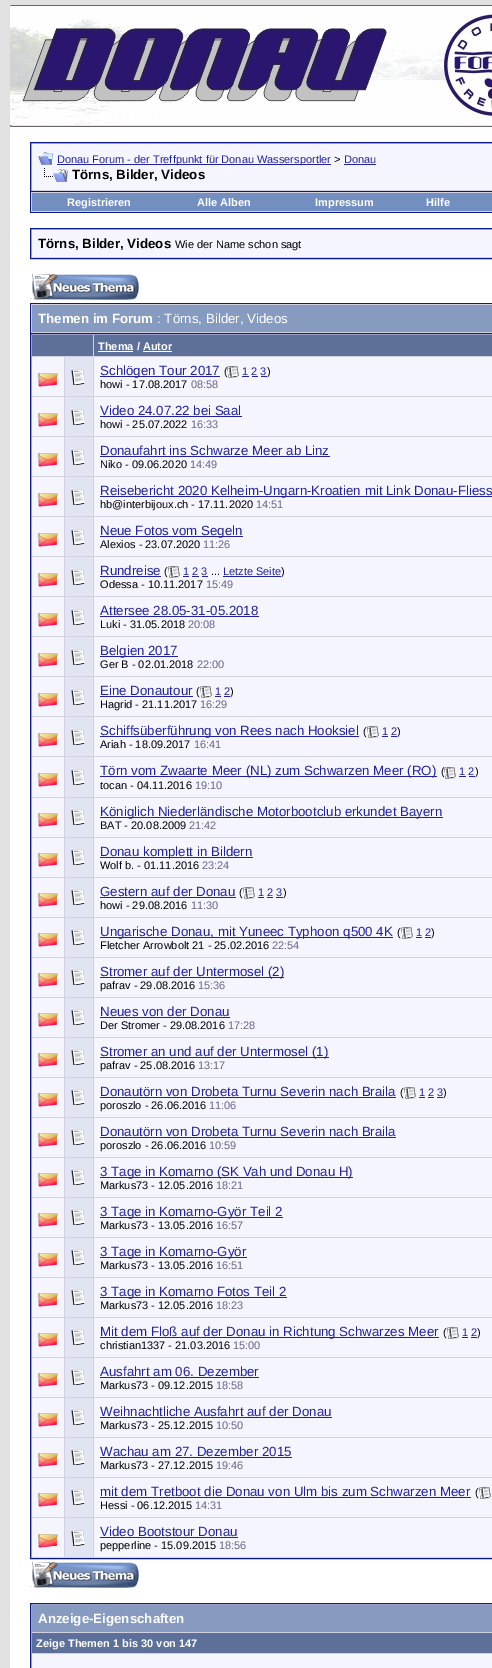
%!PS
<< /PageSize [492 1668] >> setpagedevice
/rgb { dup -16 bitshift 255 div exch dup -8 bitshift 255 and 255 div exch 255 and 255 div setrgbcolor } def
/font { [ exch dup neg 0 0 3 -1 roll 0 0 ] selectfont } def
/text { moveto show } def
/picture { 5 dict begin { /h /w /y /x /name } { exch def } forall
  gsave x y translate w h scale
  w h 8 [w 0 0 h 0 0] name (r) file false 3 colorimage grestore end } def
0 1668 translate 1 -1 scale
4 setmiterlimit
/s1 { /LiberationSans-Regular 11 font 16#22229C rgb } def
/s2 { /LiberationSans-Regular 11 font 16#000000 rgb } def
/s3 { /LiberationSans-Bold 13.3 font 16#000000 rgb } def
/s4 { /LiberationSans-Bold 11 font 16#FFFFFF rgb } def
/s5 { /LiberationSans-Bold 13.3 font 16#FFFFFF rgb } def
/s6 { /LiberationSans-Regular 13.3 font 16#FFFFFF rgb } def
/s7 { /LiberationSans-Regular 13.3 font 16#22229C rgb } def
/s8 { /LiberationSans-Regular 11 font 16#666686 rgb } def
16#E1E1E2 rgb
0 0 492 1668 rectfill
(pic1.raw) 10 5 482 122 picture
16#FFFFFF rgb
10 127 482 1541 rectfill
16#D1D1E1 rgb
30.5 142.5 moveto 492.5 142.5 lineto 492.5 191.5 lineto 30.5 191.5 lineto closepath gsave fill grestore
16#0B198C rgb
stroke
16#F5F5FF rgb
32 144 460 46 rectfill
(pic2.raw) 38 152 15 13 picture
16#22229C rgb
57 164 274 1 rectfill
s1
(Donau Forum - der Treffpunkt für Donau Wassersportler) 57 163 text
s2
(>) 334 163 text
s1
(Donau) 344 163 text
344 164 32 1 rectfill
(pic3.raw) 44 168 24 14 picture
s3
(Törns, Bilder, Videos) 72 179 text
16#D1D1E1 rgb
31 192 461 20 rectfill
16#0B198C rgb
30 212 462 1 rectfill
30 192 1 21 rectfill
16#738FBF rgb
32 193 460 18 rectfill
s4
(Registrieren) 67 206 text
(Alle Alben) 197 206 text
(Impressum) 315 206 text
(Hilfe) 426 206 text
16#D1D1E1 rgb
30.5 228.5 moveto 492.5 228.5 lineto 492.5 258.5 lineto 30.5 258.5 lineto closepath gsave fill grestore
16#0B198C rgb
stroke
16#F5F5FF rgb
32 230 460 27 rectfill
s3
(Törns, Bilder, Videos) 38 248 text
s2
(Wie der Name schon sagt) 175 248 text
(pic4.raw) 30 274 109 26 picture
16#D1D1E1 rgb
31 304 461 29 rectfill
16#0B198C rgb
30 303 462 1 rectfill
30 303 1 30 rectfill
16#869BBF rgb
32 305 460 27 rectfill
s5
(Themen im Forum) 38 323 text
s6
(: Törns, Bilder, Videos) 157 323 text
16#D1D1E1 rgb
30.5 333.5 moveto 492.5 333.5 lineto 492.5 1558.5 lineto 30.5 1558.5 lineto closepath gsave fill grestore
16#0B198C rgb
stroke
16#5C7099 rgb
32 335 61 21 rectfill
94 335 398 21 rectfill
s4
(Thema / Autor) 98 350 text
98 351 35 1 rectfill
143 351 29 1 rectfill
16#F5F5FF rgb
32 357 32 39 rectfill
(pic5.raw) 38 373 20 14 picture
16#E1E4F2 rgb
65 357 28 39 rectfill
(pic6.raw) 71 369 15 16 picture
16#F5F5FF rgb
94 357 398 39 rectfill
16#22229C rgb
100 376 120 1 rectfill
s7
(Schlögen Tour 2017) 100 375 text
s2
(\() 224 375 text
(pic7.raw) 227 366 12 12 picture
s1
(1 2 3) 242 375 text
242 376 7 1 rectfill
252 376 6 1 rectfill
s2
(\)) 267 375 text
16#22229C rgb
261 376 6 1 rectfill
s2
(howi - 17.08.2017) 100 388 text
s8
(08:58) 191 388 text
16#F5F5FF rgb
32 397 32 39 rectfill
(pic5.raw) 38 413 20 14 picture
16#E1E4F2 rgb
65 397 28 39 rectfill
(pic6.raw) 71 409 15 16 picture
16#F5F5FF rgb
94 397 398 39 rectfill
s7
(Video 24.07.22 bei Saal) 100 415 text
100 416 142 1 rectfill
s2
(howi - 25.07.2022) 100 428 text
s8
(16:33) 191 428 text
16#F5F5FF rgb
32 437 32 39 rectfill
(pic5.raw) 38 453 20 14 picture
16#E1E4F2 rgb
65 437 28 39 rectfill
(pic6.raw) 71 449 15 16 picture
16#F5F5FF rgb
94 437 398 39 rectfill
s7
(Donaufahrt ins Schwarze Meer ab Linz) 100 455 text
100 456 230 1 rectfill
s2
(Niko - 09.06.2020) 100 468 text
s8
(14:49) 190 468 text
16#F5F5FF rgb
32 477 32 39 rectfill
(pic5.raw) 38 493 20 14 picture
16#E1E4F2 rgb
65 477 28 39 rectfill
(pic6.raw) 71 489 15 16 picture
16#F5F5FF rgb
94 477 398 39 rectfill
16#22229C rgb
100 496 392 1 rectfill
s7
(Reisebericht 2020 Kelheim-Ungarn-Kroatien mit Link Donau-Fliess) 100 495 text
s2
(hb@interbijoux.ch - 17.11.2020) 100 508 text
s8
(14:51) 256 508 text
16#F5F5FF rgb
32 517 32 39 rectfill
(pic5.raw) 38 533 20 14 picture
16#E1E4F2 rgb
65 517 28 39 rectfill
(pic6.raw) 71 529 15 16 picture
16#F5F5FF rgb
94 517 398 39 rectfill
16#22229C rgb
100 536 143 1 rectfill
s7
(Neue Fotos vom Segeln) 100 535 text
s2
(Alexios - 23.07.2020) 100 548 text
s8
(11:26) 203 548 text
16#F5F5FF rgb
32 557 32 39 rectfill
(pic5.raw) 38 573 20 14 picture
16#E1E4F2 rgb
65 557 28 39 rectfill
(pic6.raw) 71 569 15 16 picture
16#F5F5FF rgb
94 557 398 39 rectfill
s7
(Rundreise) 100 575 text
100 576 61 1 rectfill
s2
(\() 164 575 text
(pic8.raw) 168 566 12 12 picture
s1
(1 2 3) 183 575 text
183 576 6 1 rectfill
192 576 7 1 rectfill
s2
(...) 211 575 text
16#22229C rgb
202 576 6 1 rectfill
(Letzte Seite) 223 575 text
s2
(\)) 281 575 text
16#22229C rgb
223 576 58 1 rectfill
s2
(Odessa - 10.11.2017) 100 588 text
s8
(15:49) 206 588 text
16#F5F5FF rgb
32 597 32 39 rectfill
(pic5.raw) 38 613 20 14 picture
16#E1E4F2 rgb
65 597 28 39 rectfill
(pic6.raw) 71 609 15 16 picture
16#F5F5FF rgb
94 597 398 39 rectfill
s7
(Attersee 28.05-31-05.2018) 100 615 text
100 616 159 1 rectfill
s2
(Luki - 31.05.2018) 100 628 text
s8
(20:08) 188 628 text
16#F5F5FF rgb
32 637 32 39 rectfill
(pic5.raw) 38 653 20 14 picture
16#E1E4F2 rgb
65 637 28 39 rectfill
(pic6.raw) 71 649 15 16 picture
16#F5F5FF rgb
94 637 398 39 rectfill
16#22229C rgb
100 656 78 1 rectfill
s7
(Belgien 2017) 100 655 text
s2
(Ger B - 02.01.2018) 100 668 text
s8
(22:00) 197 668 text
16#F5F5FF rgb
32 677 32 39 rectfill
(pic5.raw) 38 693 20 14 picture
16#E1E4F2 rgb
65 677 28 39 rectfill
(pic6.raw) 71 689 15 16 picture
16#F5F5FF rgb
94 677 398 39 rectfill
s7
(Eine Donautour) 100 695 text
100 696 93 1 rectfill
s2
(\() 196 695 text
(pic9.raw) 200 686 12 12 picture
s1
(1 2) 215 695 text
215 696 6 1 rectfill
s2
(\)) 230 695 text
16#22229C rgb
224 696 6 1 rectfill
s2
(Hagrid - 21.11.2017) 100 708 text
s8
(16:29) 200 708 text
16#F5F5FF rgb
32 717 32 39 rectfill
(pic5.raw) 38 733 20 14 picture
16#E1E4F2 rgb
65 717 28 39 rectfill
(pic6.raw) 71 729 15 16 picture
16#F5F5FF rgb
94 717 398 39 rectfill
16#22229C rgb
100 736 259 1 rectfill
s7
(Schiffsüberführung von Rees nach Hooksiel) 100 735 text
s2
(\() 363 735 text
(pic9.raw) 367 726 12 12 picture
s1
(1 2) 382 735 text
382 736 6 1 rectfill
s2
(\)) 397 735 text
16#22229C rgb
391 736 6 1 rectfill
s2
(Ariah - 18.09.2017) 100 748 text
s8
(16:41) 194 748 text
16#F5F5FF rgb
32 757 32 40 rectfill
(pic5.raw) 38 773 20 14 picture
16#E1E4F2 rgb
65 757 28 40 rectfill
(pic6.raw) 71 769 15 16 picture
16#F5F5FF rgb
94 757 398 40 rectfill
16#22229C rgb
100 776 337 1 rectfill
s7
(Törn vom Zwaarte Meer \(NL\) zum Schwarzen Meer \(RO\)) 100 775 text
s2
(\() 441 775 text
(pic10.raw) 444 767 12 12 picture
s1
(1 2) 459 775 text
459 776 7 1 rectfill
469 776 6 1 rectfill
s2
(\)) 475 775 text
(tocan - 04.11.2016) 100 789 text
s8
(19:10) 195 789 text
16#F5F5FF rgb
32 798 32 39 rectfill
(pic5.raw) 38 813 20 14 picture
16#E1E4F2 rgb
65 798 28 39 rectfill
(pic6.raw) 71 809 15 16 picture
16#F5F5FF rgb
94 798 398 39 rectfill
16#22229C rgb
100 817 343 1 rectfill
s7
(Königlich Niederländische Motorbootclub erkundet Bayern) 100 816 text
s2
(BAT - 20.08.2009) 100 829 text
s8
(21:42) 189 829 text
16#F5F5FF rgb
32 838 32 39 rectfill
(pic5.raw) 38 853 20 14 picture
16#E1E4F2 rgb
65 838 28 39 rectfill
(pic6.raw) 71 849 15 16 picture
16#F5F5FF rgb
94 838 398 39 rectfill
16#22229C rgb
100 857 153 1 rectfill
s7
(Donau komplett in Bildern) 100 856 text
s2
(Wolf b. - 01.11.2016) 100 869 text
s8
(23:24) 202 869 text
16#F5F5FF rgb
32 878 32 39 rectfill
(pic5.raw) 38 893 20 14 picture
16#E1E4F2 rgb
65 878 28 39 rectfill
(pic6.raw) 71 889 15 16 picture
16#F5F5FF rgb
94 878 398 39 rectfill
s7
(Gestern auf der Donau) 100 896 text
100 897 136 1 rectfill
s2
(\() 239 896 text
(pic9.raw) 243 887 12 12 picture
s1
(1 2 3) 258 896 text
258 897 6 1 rectfill
267 897 6 1 rectfill
276 897 7 1 rectfill
s2
(\)) 283 896 text
(howi - 29.08.2016) 100 909 text
s8
(11:30) 191 909 text
16#F5F5FF rgb
32 918 32 39 rectfill
(pic5.raw) 38 933 20 14 picture
16#E1E4F2 rgb
65 918 28 39 rectfill
(pic6.raw) 71 929 15 16 picture
16#F5F5FF rgb
94 918 398 39 rectfill
16#22229C rgb
100 937 293 1 rectfill
s7
(Ungarische Donau, mit Yuneec Typhoon q500 4K) 100 936 text
s2
(\() 397 936 text
(pic9.raw) 401 927 12 12 picture
s1
(1 2) 416 936 text
416 937 6 1 rectfill
s2
(\)) 431 936 text
16#22229C rgb
425 937 6 1 rectfill
s2
(Fletcher Arrowbolt 21 - 25.02.2016) 100 949 text
s8
(22:54) 272 949 text
16#F5F5FF rgb
32 958 32 39 rectfill
(pic5.raw) 38 973 20 14 picture
16#E1E4F2 rgb
65 958 28 39 rectfill
(pic6.raw) 71 969 15 16 picture
16#F5F5FF rgb
94 958 398 39 rectfill
16#22229C rgb
100 977 184 1 rectfill
s7
(Stromer auf der Untermosel \(2\)) 100 976 text
s2
(pafrav - 29.08.2016) 100 989 text
s8
(15:36) 198 989 text
16#F5F5FF rgb
32 998 32 39 rectfill
(pic5.raw) 38 1013 20 14 picture
16#E1E4F2 rgb
65 998 28 39 rectfill
(pic6.raw) 71 1009 15 16 picture
16#F5F5FF rgb
94 998 398 39 rectfill
s7
(Neues von der Donau) 100 1016 text
100 1017 130 1 rectfill
s2
(Der Stromer - 29.08.2016) 100 1029 text
s8
(17:28) 228 1029 text
16#F5F5FF rgb
32 1038 32 39 rectfill
(pic5.raw) 38 1053 20 14 picture
16#E1E4F2 rgb
65 1038 28 39 rectfill
(pic6.raw) 71 1049 15 16 picture
16#F5F5FF rgb
94 1038 398 39 rectfill
16#22229C rgb
100 1057 229 1 rectfill
s7
(Stromer an und auf der Untermosel \(1\)) 100 1056 text
s2
(pafrav - 25.08.2016) 100 1069 text
s8
(13:17) 198 1069 text
16#F5F5FF rgb
32 1078 32 39 rectfill
(pic5.raw) 38 1093 20 14 picture
16#E1E4F2 rgb
65 1078 28 39 rectfill
(pic6.raw) 71 1089 15 16 picture
16#F5F5FF rgb
94 1078 398 39 rectfill
s7
(Donautörn von Drobeta Turnu Severin nach Braila) 100 1096 text
100 1097 296 1 rectfill
s2
(\() 400 1096 text
(pic9.raw) 404 1087 12 12 picture
s1
(1 2 3) 419 1096 text
419 1097 6 1 rectfill
428 1097 6 1 rectfill
s2
(\)) 443 1096 text
16#22229C rgb
437 1097 6 1 rectfill
s2
(poroszlo - 26.06.2016) 100 1109 text
s8
(11:06) 209 1109 text
16#F5F5FF rgb
32 1118 32 39 rectfill
(pic5.raw) 38 1133 20 14 picture
16#E1E4F2 rgb
65 1118 28 39 rectfill
(pic6.raw) 71 1129 15 16 picture
16#F5F5FF rgb
94 1118 398 39 rectfill
s7
(Donautörn von Drobeta Turnu Severin nach Braila) 100 1136 text
100 1137 296 1 rectfill
s2
(poroszlo - 26.06.2016) 100 1149 text
s8
(10:59) 209 1149 text
16#F5F5FF rgb
32 1158 32 39 rectfill
(pic5.raw) 38 1173 20 14 picture
16#E1E4F2 rgb
65 1158 28 39 rectfill
(pic6.raw) 71 1169 15 16 picture
16#F5F5FF rgb
94 1158 398 39 rectfill
16#22229C rgb
100 1177 253 1 rectfill
s7
(3 Tage in Komarno \(SK Vah und Donau H\)) 100 1176 text
s2
(Markus73 - 12.05.2016) 100 1189 text
s8
(18:21) 216 1189 text
16#F5F5FF rgb
32 1198 32 39 rectfill
(pic5.raw) 38 1213 20 14 picture
16#E1E4F2 rgb
65 1198 28 39 rectfill
(pic6.raw) 71 1209 15 16 picture
16#F5F5FF rgb
94 1198 398 39 rectfill
16#22229C rgb
100 1217 183 1 rectfill
s7
(3 Tage in Komarno-Györ Teil 2) 100 1216 text
s2
(Markus73 - 13.05.2016) 100 1229 text
s8
(16:57) 216 1229 text
16#F5F5FF rgb
32 1238 32 39 rectfill
(pic5.raw) 38 1253 20 14 picture
16#E1E4F2 rgb
65 1238 28 39 rectfill
(pic6.raw) 71 1249 15 16 picture
16#F5F5FF rgb
94 1238 398 39 rectfill
16#22229C rgb
100 1257 147 1 rectfill
s7
(3 Tage in Komarno-Györ) 100 1256 text
s2
(Markus73 - 13.05.2016) 100 1269 text
s8
(16:51) 216 1269 text
16#F5F5FF rgb
32 1278 32 39 rectfill
(pic5.raw) 38 1293 20 14 picture
16#E1E4F2 rgb
65 1278 28 39 rectfill
(pic6.raw) 71 1289 15 16 picture
16#F5F5FF rgb
94 1278 398 39 rectfill
16#22229C rgb
100 1297 187 1 rectfill
s7
(3 Tage in Komarno Fotos Teil 2) 100 1296 text
s2
(Markus73 - 12.05.2016) 100 1309 text
s8
(18:23) 216 1309 text
16#F5F5FF rgb
32 1318 32 39 rectfill
(pic5.raw) 38 1333 20 14 picture
16#E1E4F2 rgb
65 1318 28 39 rectfill
(pic6.raw) 71 1329 15 16 picture
16#F5F5FF rgb
94 1318 398 39 rectfill
16#22229C rgb
100 1337 339 1 rectfill
s7
(Mit dem Floß auf der Donau in Richtung Schwarzes Meer) 100 1336 text
s2
(\() 443 1336 text
(pic9.raw) 447 1327 12 12 picture
s1
(1 2) 462 1336 text
462 1337 6 1 rectfill
s2
(\)) 477 1336 text
16#22229C rgb
471 1337 6 1 rectfill
s2
(christian1337 - 21.03.2016) 100 1349 text
s8
(15:00) 233 1349 text
16#F5F5FF rgb
32 1358 32 39 rectfill
(pic5.raw) 38 1373 20 14 picture
16#E1E4F2 rgb
65 1358 28 39 rectfill
(pic6.raw) 71 1369 15 16 picture
16#F5F5FF rgb
94 1358 398 39 rectfill
s7
(Ausfahrt am 06. Dezember) 100 1376 text
100 1377 159 1 rectfill
s2
(Markus73 - 09.12.2015) 100 1389 text
s8
(18:58) 216 1389 text
16#F5F5FF rgb
32 1398 32 39 rectfill
(pic5.raw) 38 1413 20 14 picture
16#E1E4F2 rgb
65 1398 28 39 rectfill
(pic6.raw) 71 1409 15 16 picture
16#F5F5FF rgb
94 1398 398 39 rectfill
s7
(Weihnachtliche Ausfahrt auf der Donau) 100 1416 text
100 1417 232 1 rectfill
s2
(Markus73 - 25.12.2015) 100 1429 text
s8
(10:50) 216 1429 text
16#F5F5FF rgb
32 1438 32 39 rectfill
(pic5.raw) 38 1453 20 14 picture
16#E1E4F2 rgb
65 1438 28 39 rectfill
(pic6.raw) 71 1449 15 16 picture
16#F5F5FF rgb
94 1438 398 39 rectfill
s7
(Wachau am 27. Dezember 2015) 100 1456 text
100 1457 192 1 rectfill
s2
(Markus73 - 27.12.2015) 100 1469 text
s8
(19:46) 216 1469 text
16#F5F5FF rgb
32 1478 32 39 rectfill
(pic5.raw) 38 1493 20 14 picture
16#E1E4F2 rgb
65 1478 28 39 rectfill
(pic6.raw) 71 1489 15 16 picture
16#F5F5FF rgb
94 1478 398 39 rectfill
s7
(mit dem Tretboot die Donau von Ulm bis zum Schwarzen Meer) 100 1496 text
100 1497 371 1 rectfill
s2
(\() 475 1496 text
(pic9.raw) 479 1487 12 12 picture
(Hessi - 06.12.2015) 100 1509 text
s8
(14:31) 195 1509 text
16#F5F5FF rgb
32 1518 32 39 rectfill
(pic5.raw) 38 1534 20 14 picture
16#E1E4F2 rgb
65 1518 28 39 rectfill
(pic6.raw) 71 1530 15 16 picture
16#F5F5FF rgb
94 1518 398 39 rectfill
s7
(Video Bootstour Donau) 100 1536 text
100 1537 138 1 rectfill
s2
(pepperline - 15.09.2015) 100 1549 text
s8
(18:56) 219 1549 text
(pic4.raw) 30 1562 109 26 picture
16#D1D1E1 rgb
30.5 1603.5 moveto 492.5 1603.5 lineto 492.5 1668.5 lineto 30.5 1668.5 lineto closepath gsave fill grestore
16#0B198C rgb
stroke
16#869BBF rgb
32 1605 460 27 rectfill
s5
(Anzeige-Eigenschaften) 38 1623 text
16#5C7099 rgb
32 1633 460 20 rectfill
s4
(Zeige Themen 1 bis 30 von 147) 36 1647 text
16#F5F5FF rgb
32 1654 460 14 rectfill
showpage
